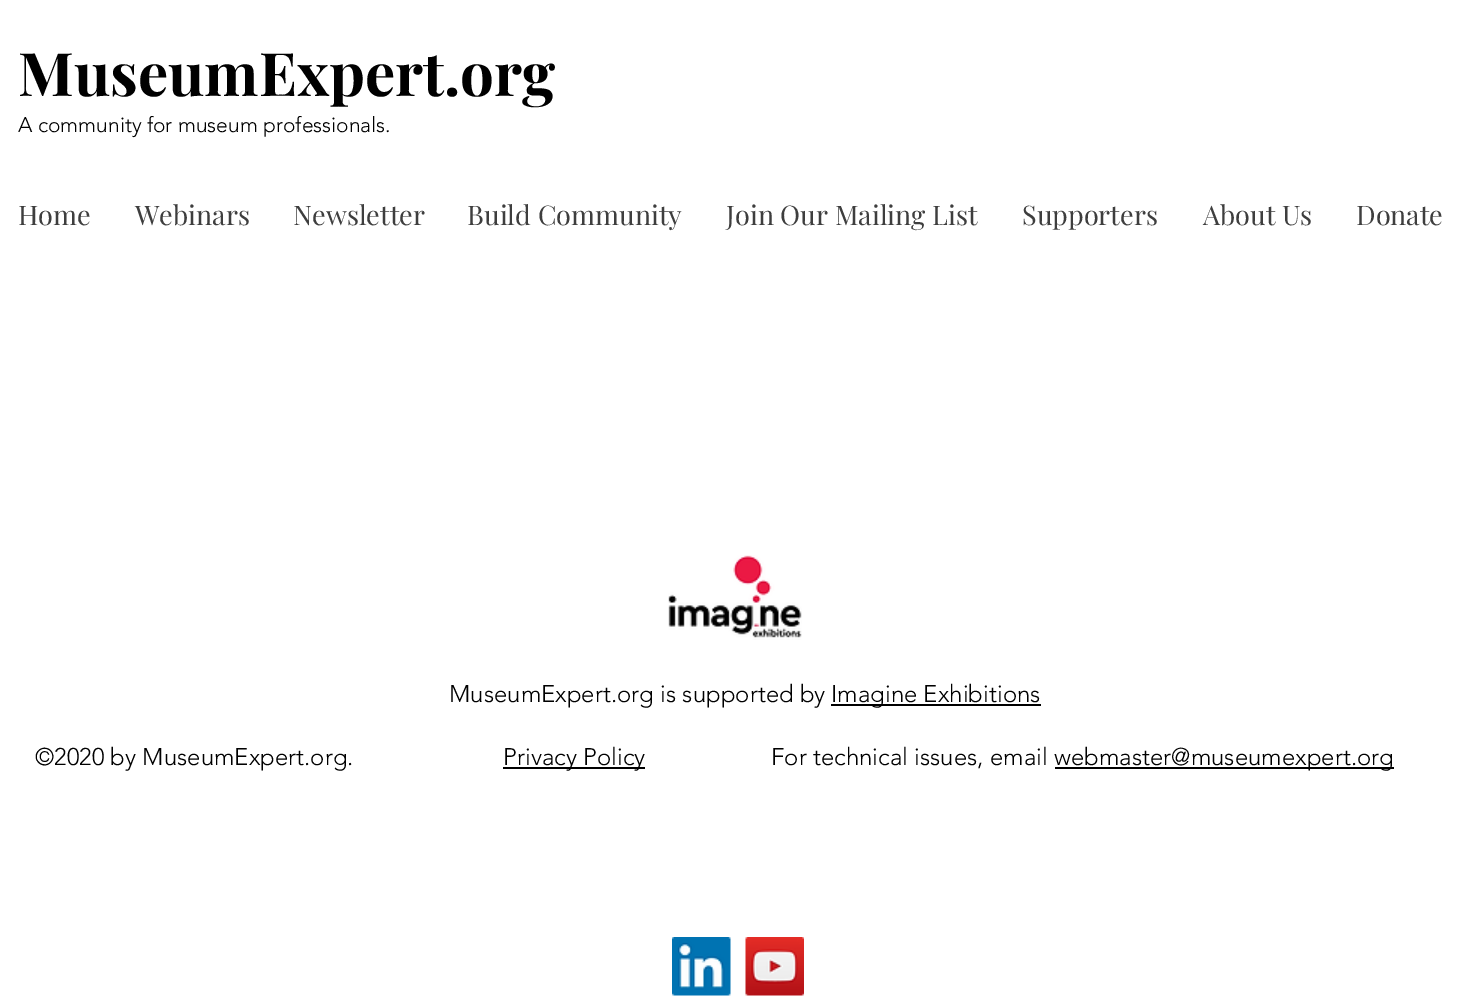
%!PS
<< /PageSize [1476 999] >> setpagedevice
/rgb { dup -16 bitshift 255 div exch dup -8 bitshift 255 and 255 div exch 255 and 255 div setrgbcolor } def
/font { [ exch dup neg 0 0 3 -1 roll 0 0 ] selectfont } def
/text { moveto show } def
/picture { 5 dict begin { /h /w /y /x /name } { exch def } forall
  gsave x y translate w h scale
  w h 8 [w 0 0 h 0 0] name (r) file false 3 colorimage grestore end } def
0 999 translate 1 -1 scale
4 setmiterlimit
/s1 { /PlayfairDisplay-Bold 60 font 16#000000 rgb } def
/s2 { /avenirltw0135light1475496-Light 21 font 16#000000 rgb } def
/s3 { /PlayfairDisplay-Regular 27 font 16#3E3E3E rgb } def
/s4 { /avenirltw0135light1475496-Light 24 font 16#000000 rgb } def
16#FFFFFF rgb
0 0 1476 999 rectfill
s1
(MuseumExpert.org) 18 96 text
s2
(A community for museum professionals.) 18 132 text
s3
(Home) 18 225 text
(Webinars) 135 225 text
(Newsletter) 293 225 text
(Build Community) 467 225 text
(Join Our Mailing List) 726 225 text
(Supporters) 1022 225 text
(About Us) 1203 225 text
(Donate) 1356 225 text
(pic1.raw) 668 555 134 85 picture
s4
(MuseumExpert.org is supported by) 449 702 text
831 704 210 2 rectfill
(Imagine Exhibitions) 831 702 text
(©2020 by MuseumExpert.org.) 35 765 text
503 767 142 2 rectfill
(Privacy Policy) 503 765 text
(For technical issues, email) 771 765 text
1055 767 339 2 rectfill
(webmaster@museumexpert.org) 1054 765 text
(pic2.raw) 672 937 59 59 picture
(pic3.raw) 745 937 59 59 picture
showpage
